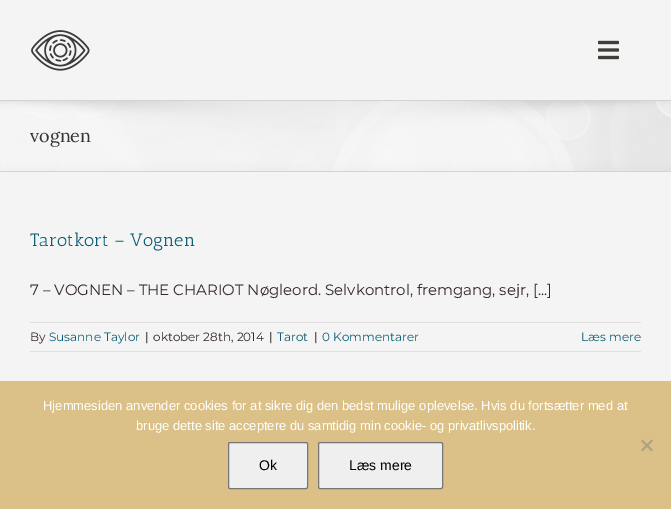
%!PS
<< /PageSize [671 509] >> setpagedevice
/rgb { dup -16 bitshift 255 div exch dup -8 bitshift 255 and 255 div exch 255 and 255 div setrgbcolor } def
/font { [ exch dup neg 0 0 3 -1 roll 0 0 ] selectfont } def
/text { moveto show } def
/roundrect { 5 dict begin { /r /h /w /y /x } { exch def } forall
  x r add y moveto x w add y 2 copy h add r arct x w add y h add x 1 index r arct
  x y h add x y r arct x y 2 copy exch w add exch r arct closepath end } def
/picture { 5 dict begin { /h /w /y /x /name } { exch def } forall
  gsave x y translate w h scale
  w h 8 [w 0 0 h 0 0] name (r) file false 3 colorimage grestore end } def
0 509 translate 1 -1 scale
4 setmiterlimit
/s1 { /Lora-Regular 18 font 16#333333 rgb } def
/s2 { /AnticSlab-Regular 18 font 16#0D6075 rgb } def
/s3 { /Montserrat-Regular 15 font 16#342829 rgb } def
/s4 { /Montserrat-Regular 12 font 16#342829 rgb } def
/s5 { /Montserrat-Regular 12 font 16#0D6075 rgb } def
/s6 { /LiberationSans-Regular 13 font 16#FFFFFF rgb } def
/s7 { /LiberationSans-Regular 14 font 16#000000 rgb } def
16#F4F4F4 rgb
0 0 671 509 rectfill
(pic1.raw) 31 30 59 41 picture
(pic2.raw) 598 40 21 20 picture
(pic3.raw) 0 101 671 70 picture
16#D2D3D4 rgb
0 100 671 1 rectfill
0 171 671 1 rectfill
s1
(vognen) 30 142 text
s2
(Tarotkort – Vognen) 30 246 text
s3
(7 – VOGNEN – THE CHARIOT Nøgleord. Selvkontrol, fremgang, sejr, [...]) 30 295 text
16#E0DEDE rgb
30 322 611 1 rectfill
30 351 611 1 rectfill
s4
(By) 30 341 text
s5
(Susanne Taylor) 49 341 text
s4
(|) 145 341 text
(oktober 28th, 2014) 153 341 text
(|) 269 341 text
s5
(Tarot) 277 341 text
s4
(|) 314 341 text
s5
(0 Kommentarer) 322 341 text
(Læs mere) 581 341 text
16#DBC188 rgb
0 381 671 128 rectfill
s6
(Hjemmesiden anvender cookies for at sikre dig den bedst mulige oplevelse. Hvis du fortsætter med at) 43 410 text
(bruge dette site acceptere du samtidig min cookie- og privatlivspolitik.) 136 430 text
16#AEA184 rgb
651.5 439.5 moveto 653 441 lineto 642.5 451.5 lineto 641 450 lineto closepath fill
641 441 moveto 642.5 439.5 lineto 653 450 lineto 651.5 451.5 lineto closepath fill
16#EFEFEF rgb
228.5 442.5 79 46 1.5 roundrect gsave fill grestore
16#767676 rgb
stroke
s7
(Ok) 259 470 text
16#EFEFEF rgb
318.5 442.5 124 46 1.5 roundrect gsave fill grestore
16#767676 rgb
stroke
s7
(Læs mere) 349 470 text
showpage
